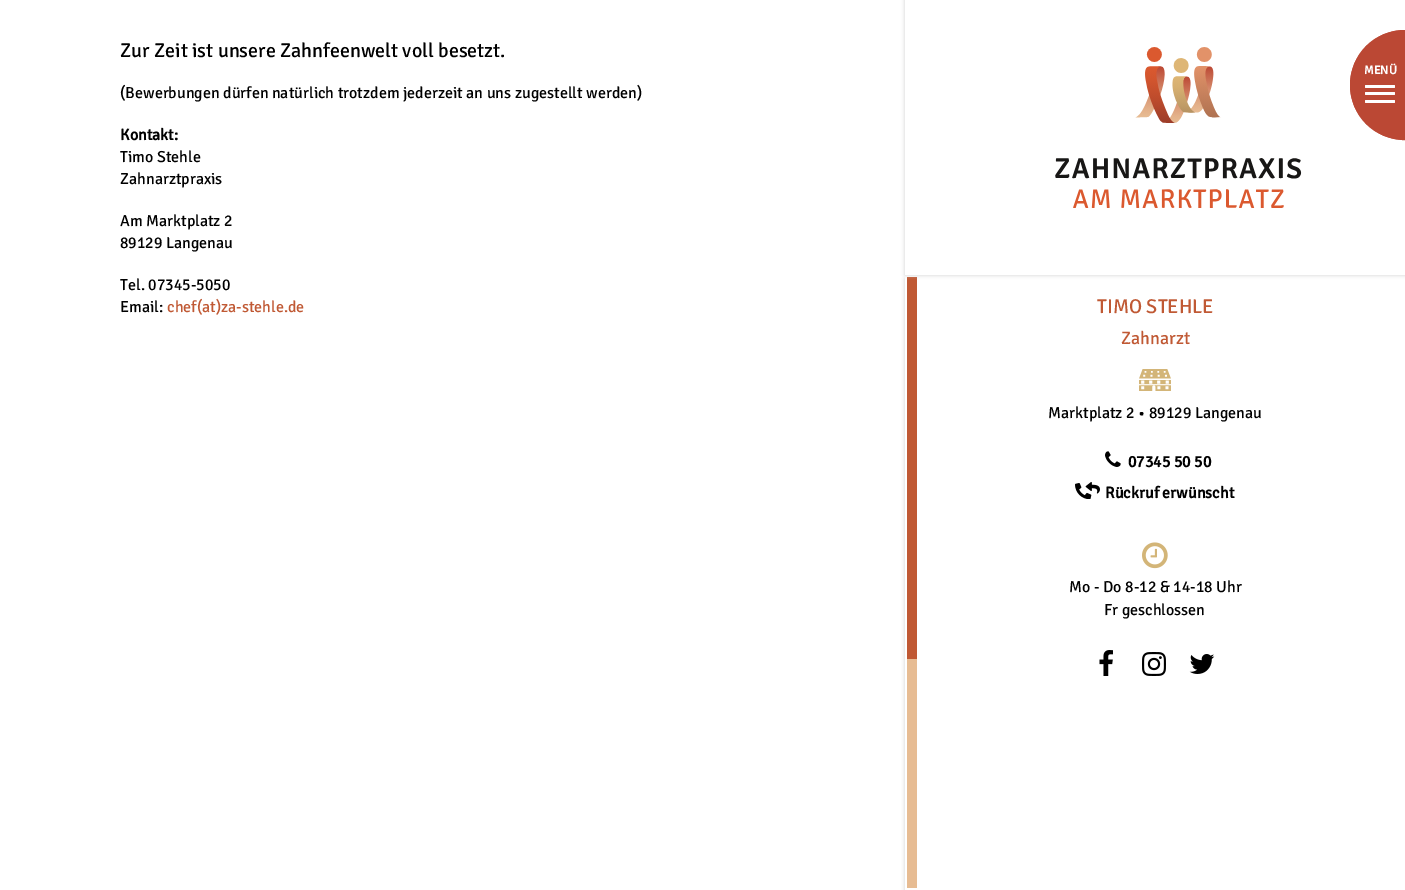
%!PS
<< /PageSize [1405 890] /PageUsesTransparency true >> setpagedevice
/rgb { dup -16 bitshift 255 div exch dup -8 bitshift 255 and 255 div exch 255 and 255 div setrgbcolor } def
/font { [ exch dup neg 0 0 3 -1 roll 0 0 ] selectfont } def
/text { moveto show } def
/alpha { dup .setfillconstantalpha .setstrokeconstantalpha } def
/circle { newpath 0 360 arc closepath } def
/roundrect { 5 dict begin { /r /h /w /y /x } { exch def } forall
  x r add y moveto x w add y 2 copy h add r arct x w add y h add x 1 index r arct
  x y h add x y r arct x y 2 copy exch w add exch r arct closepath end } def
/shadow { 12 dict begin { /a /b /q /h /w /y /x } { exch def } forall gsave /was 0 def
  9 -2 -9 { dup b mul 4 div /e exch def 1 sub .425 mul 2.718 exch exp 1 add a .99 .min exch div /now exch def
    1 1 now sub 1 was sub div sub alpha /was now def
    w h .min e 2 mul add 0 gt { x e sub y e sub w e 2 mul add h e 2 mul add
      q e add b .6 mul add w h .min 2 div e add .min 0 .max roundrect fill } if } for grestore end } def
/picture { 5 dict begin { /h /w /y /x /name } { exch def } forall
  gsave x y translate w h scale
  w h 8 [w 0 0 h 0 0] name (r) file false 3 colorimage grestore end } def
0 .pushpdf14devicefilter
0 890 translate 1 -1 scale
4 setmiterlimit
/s1 { /Signika-Regular 20 font 16#000000 rgb } def
/s2 { /Signika-Regular 16 font 16#000000 rgb } def
/s3 { /Signika-Bold 16 font 16#000000 rgb } def
/s4 { /Signika-Regular 16 font 16#C05934 rgb } def
/s5 { /Signika-Bold 12 font 16#FFFFFF rgb } def
/s6 { /Signika-Regular 20 font 16#C05934 rgb } def
/s7 { /Signika-Regular 18 font 16#C05934 rgb } def
16#FFFFFF rgb
0 0 1405 890 rectfill
s1
(Zur Zeit ist unsere Zahnfeenwelt voll besetzt.) 120 57 text
s2
(\(Bewerbungen dürfen natürlich trotzdem jederzeit an uns zugestellt werden\)) 120 98 text
s3
(Kontakt:) 120 140 text
s2
(Timo Stehle) 120 162 text
(Zahnarztpraxis) 120 184 text
(Am Marktplatz 2) 120 226 text
(89129 Langenau) 120 248 text
(Tel. 07345-5050) 120 290 text
(Email:) 120 312 text
s4
(chef\(at\)za-stehle.de) 167 312 text
gsave
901 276 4 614 rectclip
16#CCCCCC rgb
905 279 500 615 0 2 1 shadow
grestore
907 277 10 382 rectfill
gsave
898 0 moveto 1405 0 lineto 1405 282 lineto 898 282 lineto closepath 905 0 moveto 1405 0 lineto 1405 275 lineto 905 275 lineto closepath eoclip newpath
16#CCCCCC rgb
905 0 500 275 0 2 1 shadow
grestore
(pic1.raw) 1055 47 247 161 picture
16#BB4834 rgb
1405 30 moveto 1405 140 lineto 1374.5 140 1350 115.5 1350 85 curveto 1350 54.5 1374.5 30 1405 30 curveto closepath fill
1405 85 54.5 circle stroke
s5
(MENÜ) 1364 74 text
1365 85 30 3 1 roundrect fill
1365 92 30 3 1 roundrect fill
1365 100 30 3 1 roundrect fill
s6
(TIMO STEHLE) 1097 313 text
s7
(Zahnarzt) 1121 344 text
(pic2.raw) 1139 369 32 22 picture
s2
(Marktplatz 2 • 89129 Langenau) 1048 418 text
(pic3.raw) 1105 451 16 16 picture
s3
(07345 50 50) 1128 467 text
(pic4.raw) 1075 482 25 17 picture
(Rückruf erwünscht) 1105 498 text
(pic5.raw) 1142 542 26 27 picture
s2
(Mo - Do 8-12 & 14-18 Uhr) 1069 592 text
(Fr geschlossen) 1104 615 text
(pic6.raw) 1099 650 14 26 picture
(pic7.raw) 1142 652 24 24 picture
(pic8.raw) 1189 654 26 20 picture
16#E7BC93 rgb
907 659 10 229 rectfill
.poppdf14devicefilter showpage
